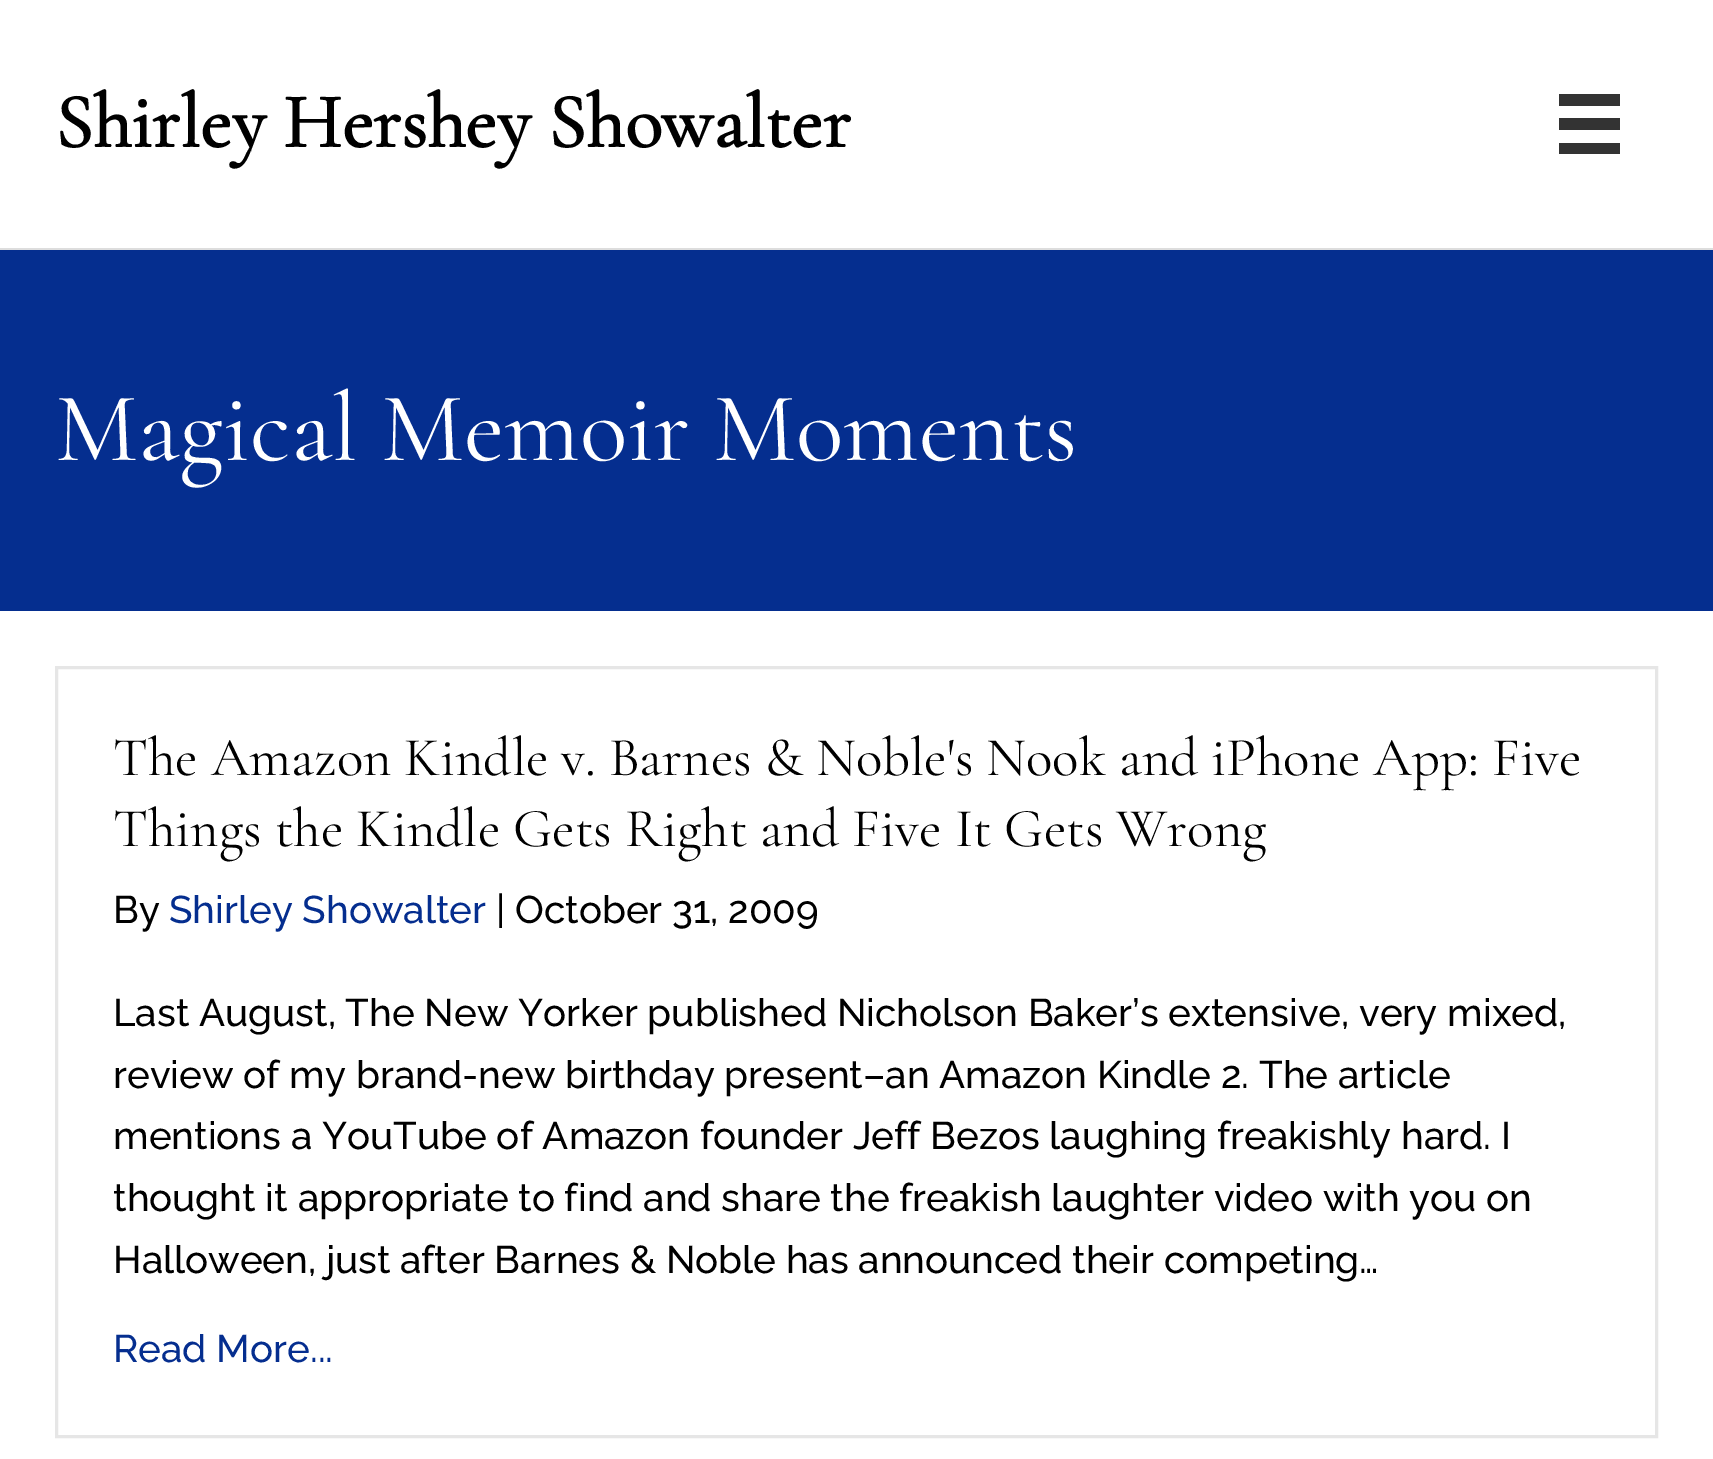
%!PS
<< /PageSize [1713 1459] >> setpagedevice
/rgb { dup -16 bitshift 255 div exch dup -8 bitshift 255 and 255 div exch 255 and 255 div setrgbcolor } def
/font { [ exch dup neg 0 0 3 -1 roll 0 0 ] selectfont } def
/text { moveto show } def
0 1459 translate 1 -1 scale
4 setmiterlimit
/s1 { /CormorantGaramond-Bold 77 font 16#000000 rgb } def
/s2 { /CormorantGaramond-Light 99 font 16#FFFFFF rgb } def
/s3 { /CormorantGaramond-Light 55 font 16#000000 rgb } def
/s4 { /Raleway-Medium 38.5 font 16#000000 rgb } def
/s5 { /Raleway-Medium 38.5 font 16#052E8F rgb } def
16#FFFFFF rgb
0 0 1713 1459 rectfill
16#DDDDDD rgb
0 248 1713 2 rectfill
s1
(Shirley Hershey Showalter) 55 147 text
16#333333 rgb
1559 94 61 12 rectfill
1559 118 61 12 rectfill
1559 143 61 11 rectfill
16#052E8F rgb
0 250 1713 361 rectfill
s2
(Magical Memoir Moments) 55 460 text
16#E6E6E6 rgb
3 setlinewidth
56.5 667.5 1600 769 rectstroke
s3
(The Amazon Kindle v. Barnes & Noble's Nook and iPhone App: Five) 113 775 text
(Things the Kindle Gets Right and Five It Gets Wrong) 113 846 text
s4
(By) 113 923 text
s5
(Shirley Showalter) 169 923 text
s4
(| October 31, 2009) 496 923 text
(Last August, The New Yorker published Nicholson Baker’s extensive, very mixed,) 113 1026 text
(review of my brand-new birthday present–an Amazon Kindle 2. The article) 113 1088 text
(mentions a YouTube of Amazon founder Jeff Bezos laughing freakishly hard. I) 113 1149 text
(thought it appropriate to find and share the freakish laughter video with you on) 113 1211 text
(Halloween, just after Barnes & Noble has announced their competing…) 113 1273 text
s5
(Read More...) 113 1362 text
showpage
